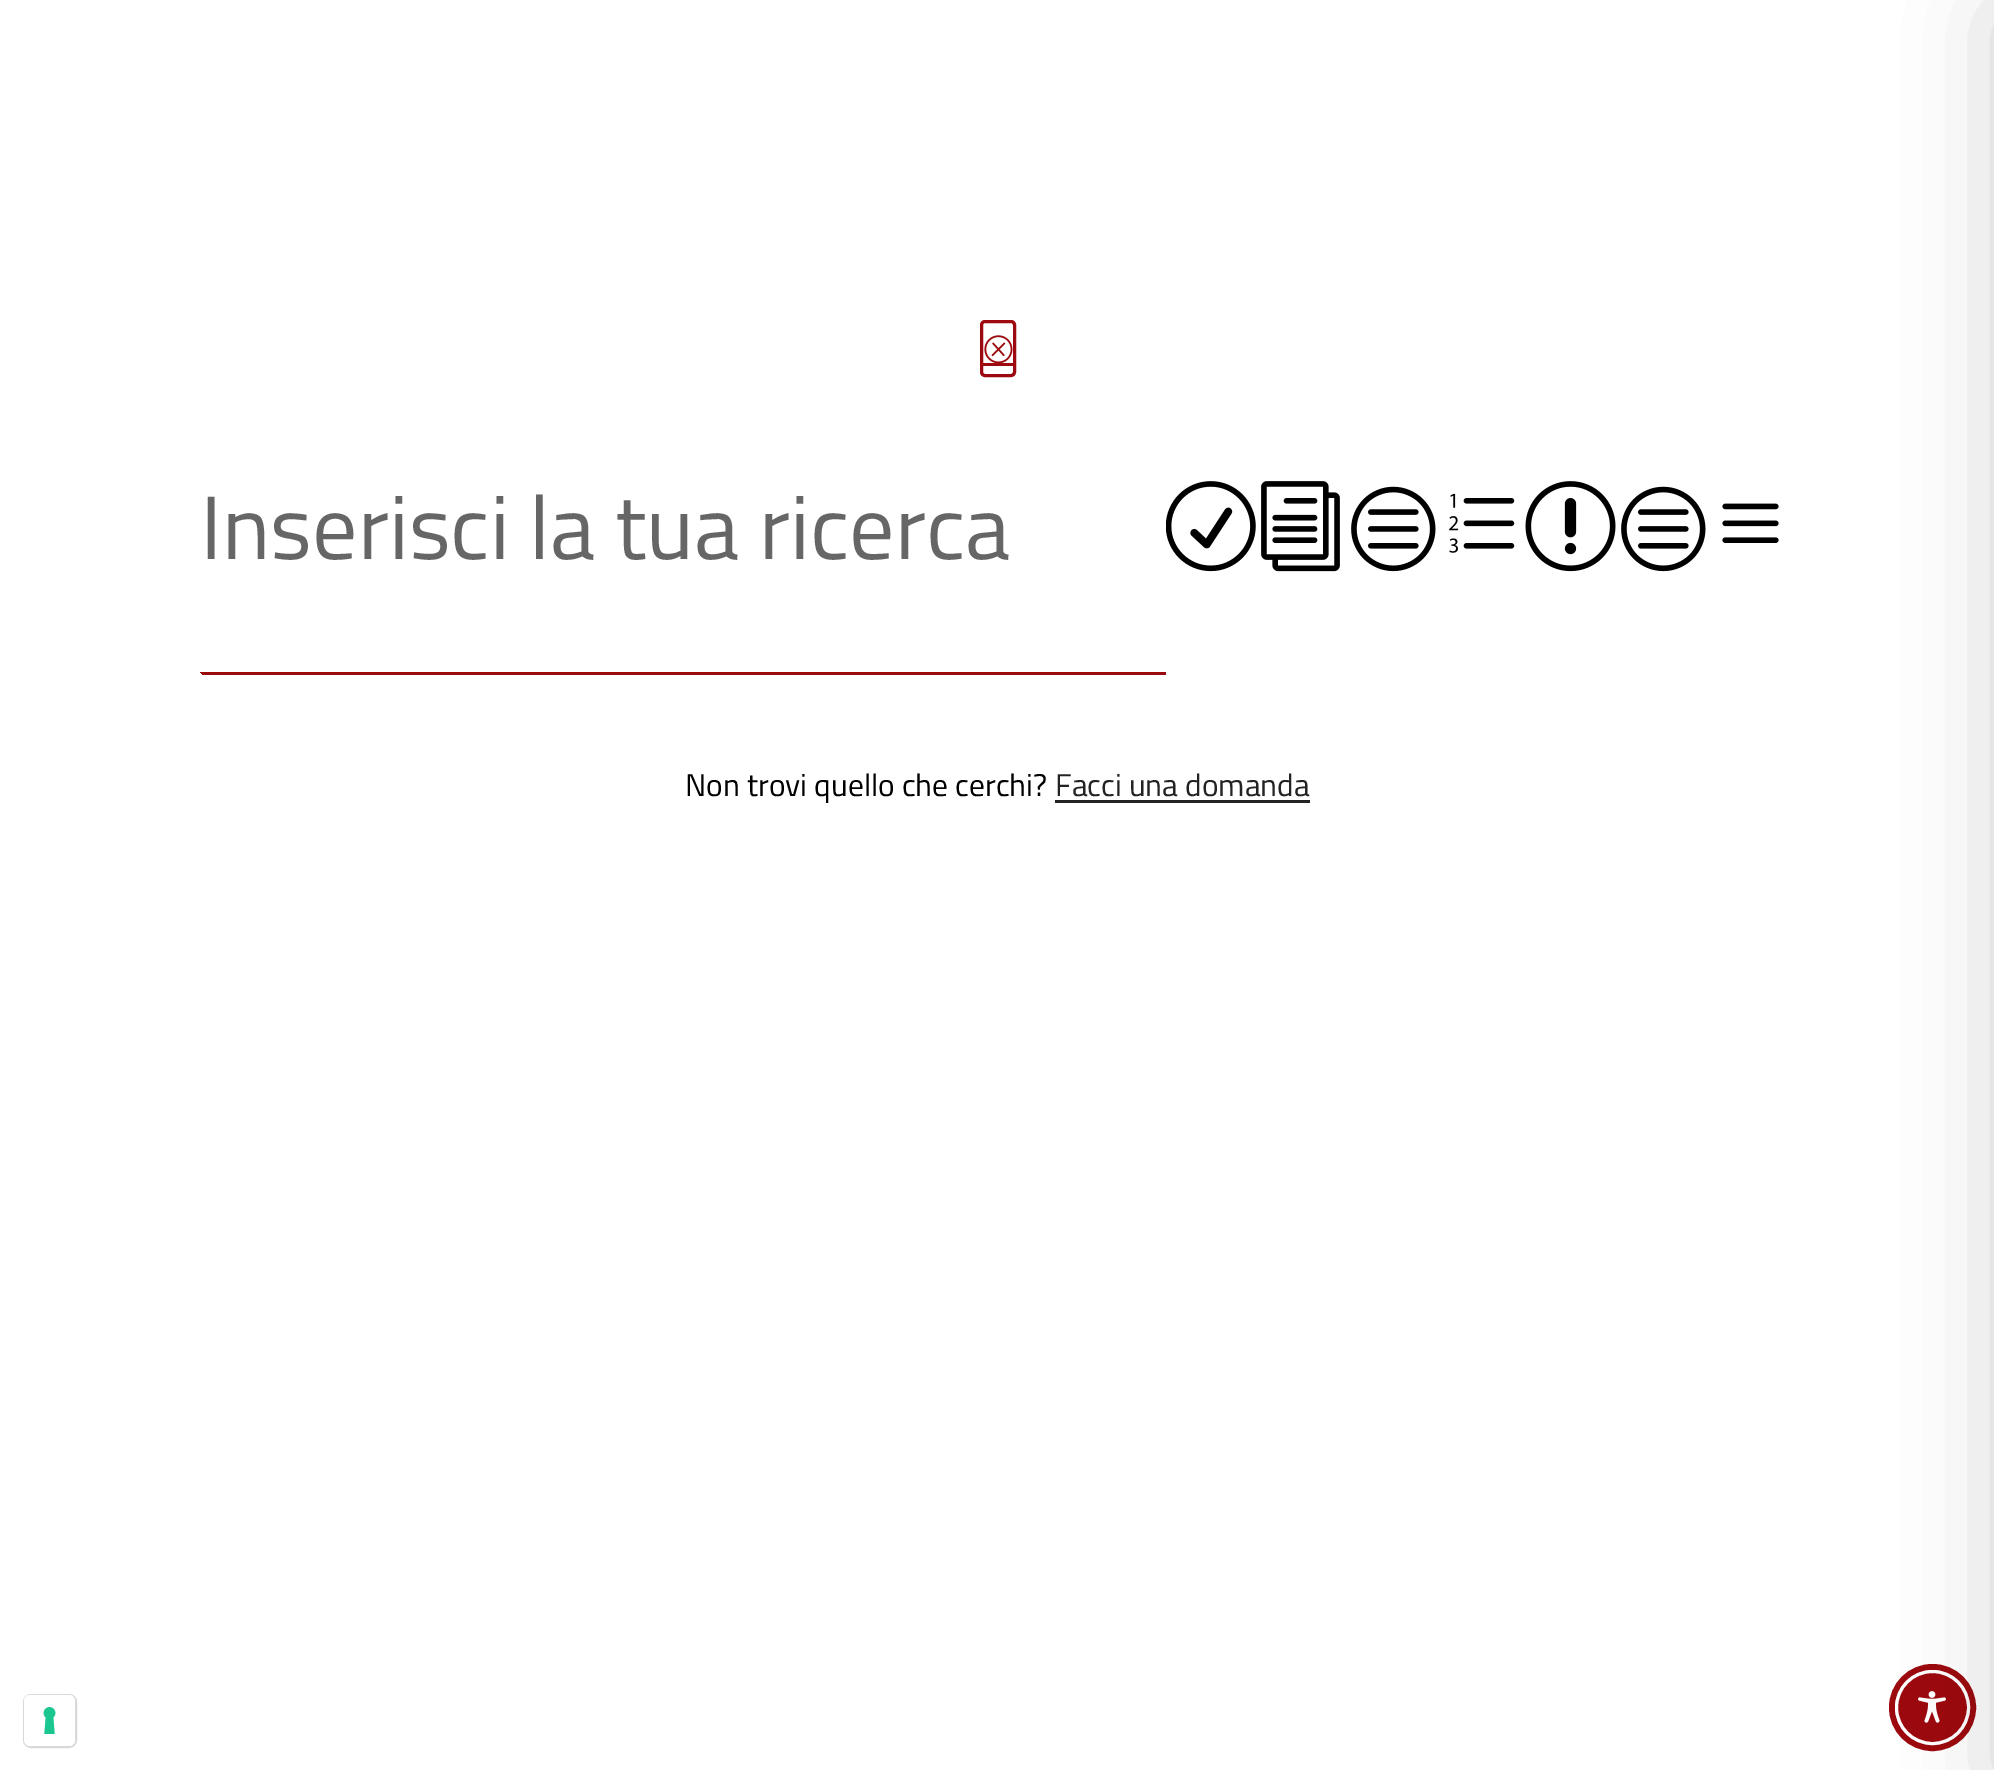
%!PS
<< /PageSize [1994 1770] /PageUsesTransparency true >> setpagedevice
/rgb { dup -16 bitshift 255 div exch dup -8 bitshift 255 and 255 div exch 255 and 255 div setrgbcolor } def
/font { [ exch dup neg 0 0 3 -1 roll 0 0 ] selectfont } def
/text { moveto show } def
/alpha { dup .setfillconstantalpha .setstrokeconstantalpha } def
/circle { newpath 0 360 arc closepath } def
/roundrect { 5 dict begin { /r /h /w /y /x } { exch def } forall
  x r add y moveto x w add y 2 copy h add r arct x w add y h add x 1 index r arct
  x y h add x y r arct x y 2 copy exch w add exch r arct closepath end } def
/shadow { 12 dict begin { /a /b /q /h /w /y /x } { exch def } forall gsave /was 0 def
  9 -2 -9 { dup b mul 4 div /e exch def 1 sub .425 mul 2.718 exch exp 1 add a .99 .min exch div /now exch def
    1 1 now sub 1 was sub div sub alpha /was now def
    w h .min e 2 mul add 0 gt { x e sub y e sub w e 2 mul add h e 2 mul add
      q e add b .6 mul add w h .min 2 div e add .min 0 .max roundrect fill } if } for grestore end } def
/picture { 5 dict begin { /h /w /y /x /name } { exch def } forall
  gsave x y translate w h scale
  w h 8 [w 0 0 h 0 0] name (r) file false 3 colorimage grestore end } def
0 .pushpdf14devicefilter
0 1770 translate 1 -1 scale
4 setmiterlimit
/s1 { /TitilliumWeb-Regular 90 font 16#666666 rgb } def
/s2 { /TitilliumWeb-Regular 31.5 font 16#000000 rgb } def
/s3 { /TitilliumWeb-Regular 31.5 font 16#232323 rgb } def
16#FFFFFF rgb
0 0 1994 1770 rectfill
16#9C090E rgb
3 setlinewidth
981.5 321.5 33 54 3.5 roundrect stroke
(pic1.raw) 984 335 29 28 picture
983 363 30 3 rectfill
gsave
200 380 1596 295 5 roundrect clip newpath
16#9C0A0E rgb
200 672 966 3 rectfill
grestore
s1
(Inserisci la tua ricerca) 200 559 text
(pic2.raw) 1166 481 613 91 picture
s2
(Non trovi quello che cerchi?) 685 796 text
s3
(Facci una domanda) 1055 796 text
1055 800 255 3 rectfill
16#9C090E rgb
6 setlinewidth
1932.5 1707.5 40.5 circle stroke
1932.5 1707.5 36 circle gsave fill grestore
16#FFFFFF rgb
3 setlinewidth
stroke
(pic4.raw) 1918 1691 28 32 picture
16#000000 rgb
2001 15 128 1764 0 45 0.2 shadow
16#D9D9D9 rgb
2 setlinewidth
24 1695 52 52 7 roundrect stroke
16#FFFFFF rgb
24 1695 51 51 6 roundrect fill
(pic3.raw) 43 1707 13 27 picture
.poppdf14devicefilter showpage
